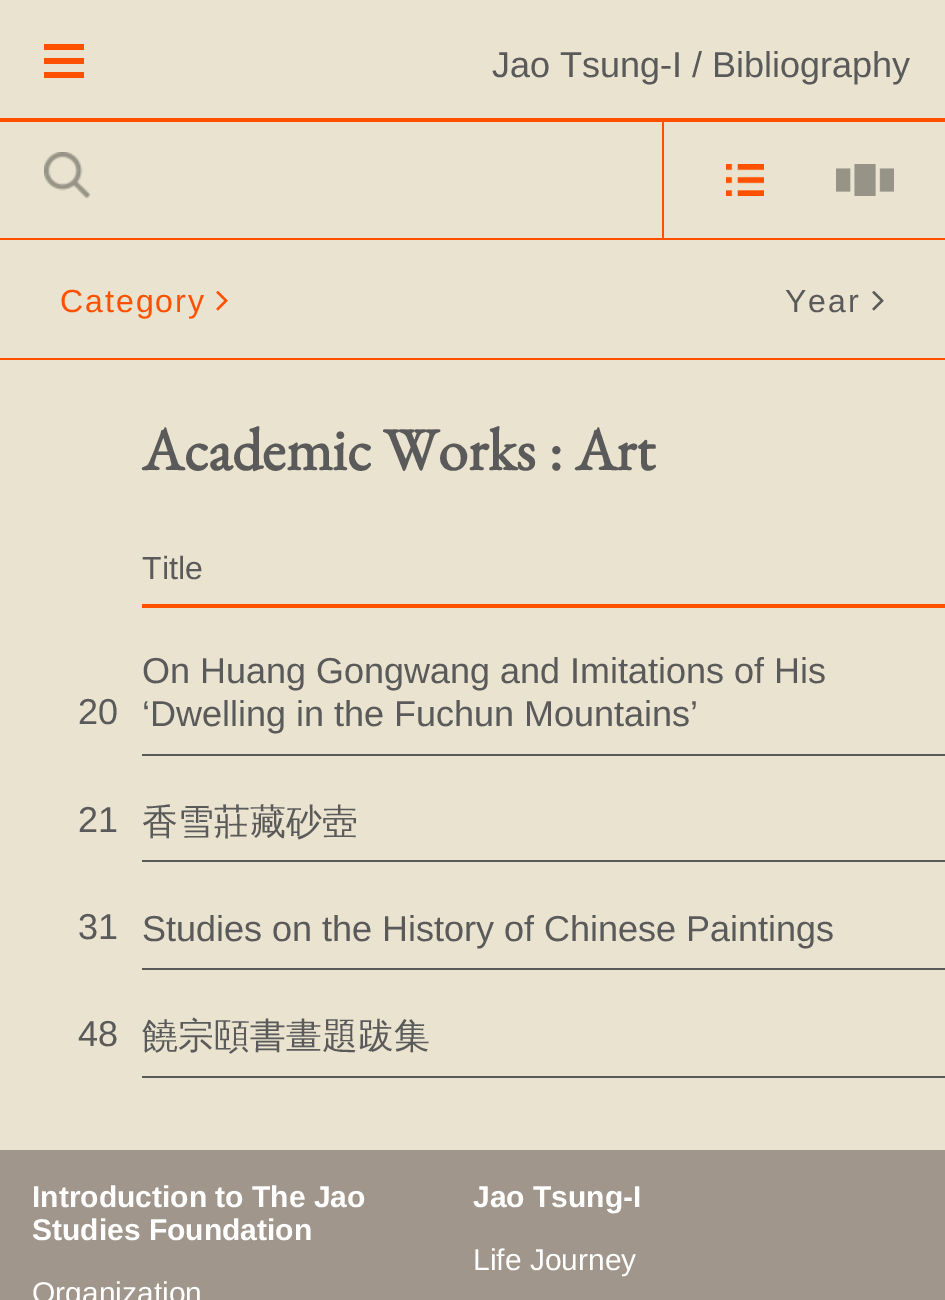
%!PS
<< /PageSize [945 1300] >> setpagedevice
/rgb { dup -16 bitshift 255 div exch dup -8 bitshift 255 and 255 div exch 255 and 255 div setrgbcolor } def
/font { [ exch dup neg 0 0 3 -1 roll 0 0 ] selectfont } def
/text { moveto show } def
/picture { 5 dict begin { /h /w /y /x /name } { exch def } forall
  gsave x y translate w h scale
  w h 8 [w 0 0 h 0 0] name (r) file false 3 colorimage grestore end } def
0 1300 translate 1 -1 scale
4 setmiterlimit
/s1 { /LiberationSans-Regular 36 font 16#5A5A5A rgb } def
/s2 { /EBGaramond-Bold 60 font 16#5A5A5A rgb } def
/s3 { /LiberationSans-Regular 32 font 16#5A5A5A rgb } def
/s4 { /WenQuanYiZenHei-Medium 36 font 16#5A5A5A rgb } def
/s5 { /LiberationSans-Bold 30 font 16#FFFFFF rgb } def
/s6 { /LiberationSans-Regular 30 font 16#FFFFFF rgb } def
16#E9E3CF rgb
0 0 945 1300 rectfill
16#FF5000 rgb
44 44 40 6 rectfill
44 58 40 6 rectfill
44 72 40 6 rectfill
s1
(Jao Tsung-I / Bibliography) 492 77 text
16#FF5000 rgb
0 118 945 4 rectfill
0 238 945 2 rectfill
(pic1.raw) 44 152 46 46 picture
662 122 2 116 rectfill
(pic2.raw) 726 164 38 32 picture
(pic3.raw) 836 164 58 32 picture
0 358 945 2 rectfill
/LiberationSans-Regular 32 font
60 312 moveto 2 0 (Category) ashow
(pic4.raw) 216 290 12 21 picture
16#5A5A5A rgb
785 312 moveto 2 0 (Year) ashow
(pic5.raw) 872 291 12 20 picture
s2
(Academic Works : Art) 142 470 text
16#FF5000 rgb
142 604 803 4 rectfill
s3
(Title) 142 579 text
s1
(20) 78 724 text
142 754 803 2 rectfill
(On Huang Gongwang and Imitations of His) 142 683 text
(‘Dwelling in the Fuchun Mountains’) 142 726 text
(21) 78 832 text
142 860 803 2 rectfill
s4
(香雪莊藏砂壺) 142 834 text
s1
(31) 78 939 text
142 968 803 2 rectfill
(Studies on the History of Chinese Paintings) 142 941 text
(48) 78 1046 text
142 1076 803 2 rectfill
s4
(饒宗頤書畫題跋集) 142 1048 text
16#A0968C rgb
0 1150 945 150 rectfill
s5
(Introduction to The Jao) 32 1207 text
(Studies Foundation) 32 1240 text
s6
(Organization) 32 1303 text
s5
(Jao Tsung-I) 473 1207 text
s6
(Life Journey) 473 1270 text
showpage
